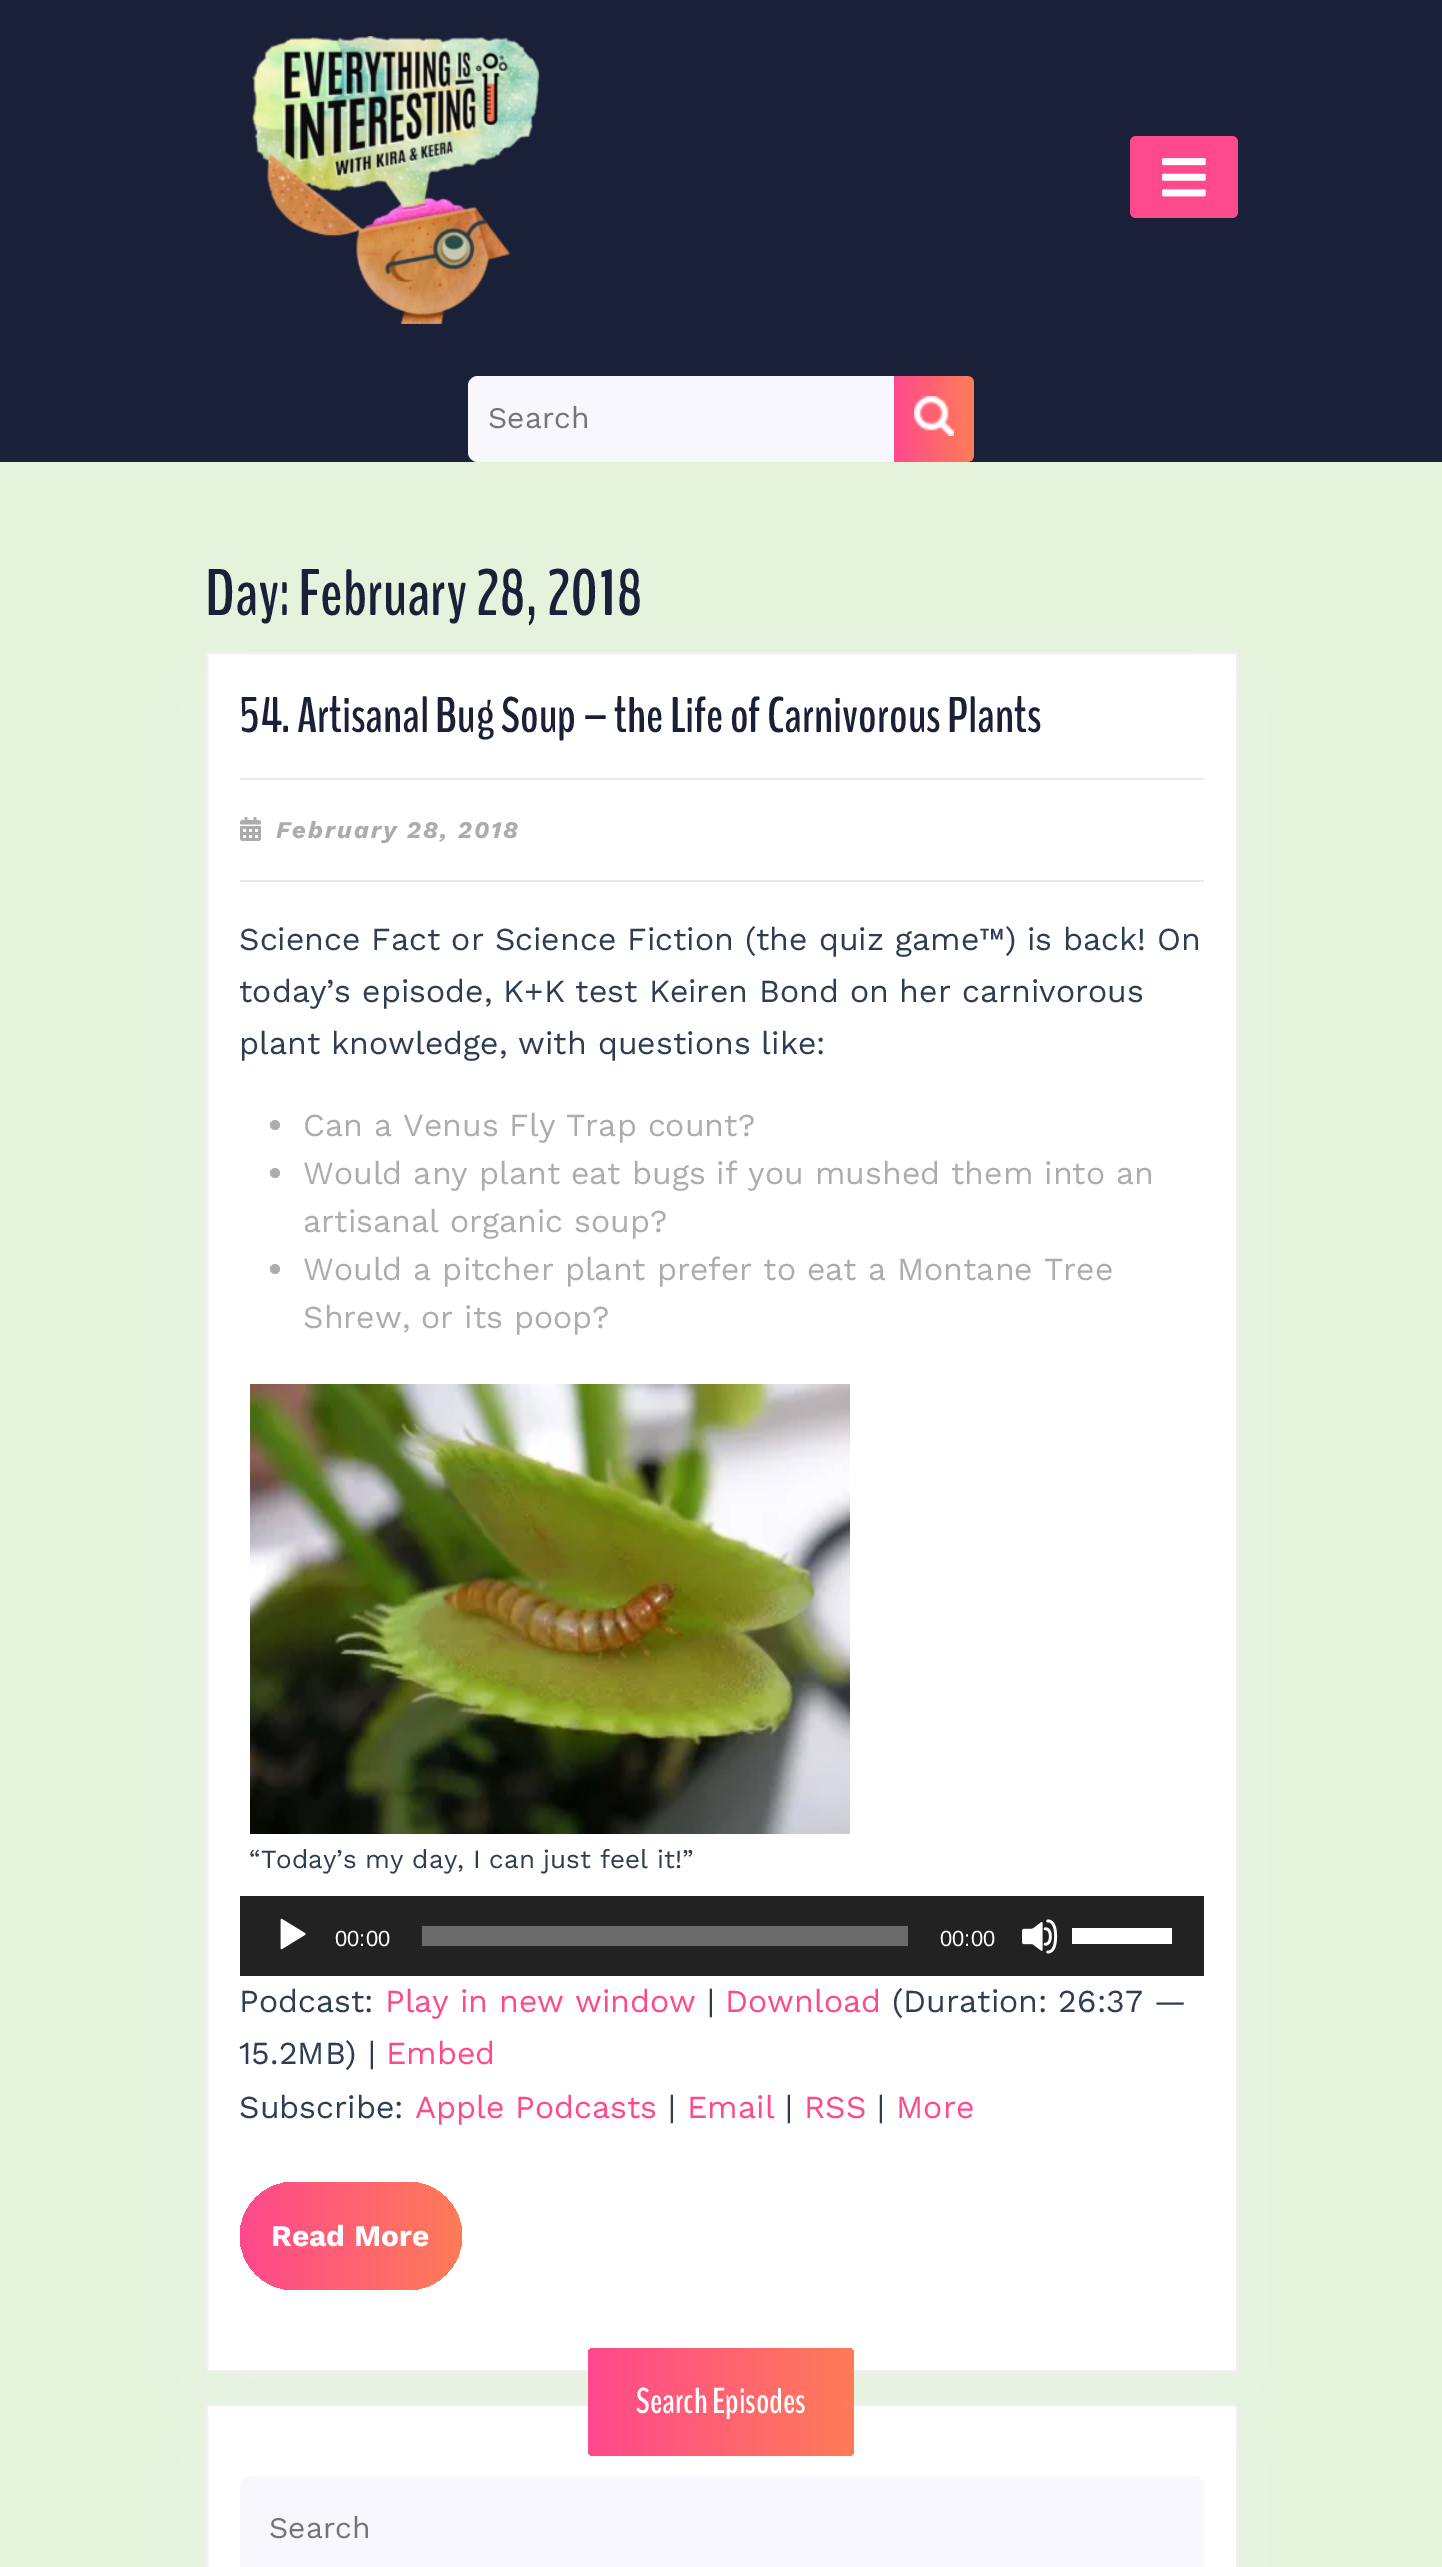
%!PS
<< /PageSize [1442 2567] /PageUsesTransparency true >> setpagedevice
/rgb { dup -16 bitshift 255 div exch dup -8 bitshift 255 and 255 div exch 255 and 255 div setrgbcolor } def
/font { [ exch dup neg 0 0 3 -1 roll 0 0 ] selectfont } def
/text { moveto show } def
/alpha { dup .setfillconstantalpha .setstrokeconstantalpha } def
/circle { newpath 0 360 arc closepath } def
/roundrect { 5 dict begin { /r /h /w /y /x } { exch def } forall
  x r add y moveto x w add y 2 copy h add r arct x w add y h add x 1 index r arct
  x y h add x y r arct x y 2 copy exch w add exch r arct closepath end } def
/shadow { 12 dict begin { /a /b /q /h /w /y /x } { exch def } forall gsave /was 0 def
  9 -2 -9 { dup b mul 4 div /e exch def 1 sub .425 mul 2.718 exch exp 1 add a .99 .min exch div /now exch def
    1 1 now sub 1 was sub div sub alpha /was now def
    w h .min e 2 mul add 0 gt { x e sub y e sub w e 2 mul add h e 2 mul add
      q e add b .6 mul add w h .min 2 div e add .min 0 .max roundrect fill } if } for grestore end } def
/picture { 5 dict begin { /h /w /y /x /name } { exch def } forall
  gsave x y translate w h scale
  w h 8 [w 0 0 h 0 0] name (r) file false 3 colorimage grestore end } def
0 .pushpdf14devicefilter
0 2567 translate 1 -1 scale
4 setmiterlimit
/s1 { /WorkSans-Regular 30 font 16#757575 rgb } def
/s2 { /BenchNine-Bold 65.5 font 16#1B2039 rgb } def
/s3 { /BenchNine-Bold 50 font 16#1B2039 rgb } def
/s4 { /WorkSans-Regular 32 font 16#2E3D54 rgb } def
/s5 { /WorkSans-Regular 32 font 16#ACACAC rgb } def
/s6 { /WorkSans-Regular 26 font 16#2E3D54 rgb } def
/s7 { /LiberationSans-Regular 22 font 16#FFFFFF rgb } def
/s8 { /WorkSans-Regular 32 font 16#FF498D rgb } def
/s9 { /WorkSans-Bold 30 font 16#FFFFFF rgb } def
/s10 { /BenchNine-Bold 36 font 16#FFFFFF rgb } def
16#E5F3DD rgb
0 0 1442 2567 rectfill
16#1B2039 rgb
0 0 1442 462 rectfill
(pic1.raw) 252 36 288 288 picture
16#FF498D rgb
1130 136 108 82 6 roundrect fill
(pic2.raw) 1162 158 44 39 picture
16#F7F7FD rgb
478 376 moveto 894 376 lineto 894 462 lineto 478 462 lineto 472.5 462 468 457.5 468 452 curveto 468 386 lineto 468 380.5 472.5 376 478 376 curveto closepath fill
s1
(Search) 488 428 text
(pic3.raw) 894 376 80 86 picture
s2
(Day: February 28, 2018) 205 615 text
16#F0F0F0 rgb
236 712 972 1660 0 35 1 shadow
16#FFFFFF rgb
207 653 moveto 1237 653 lineto 1237 2371 lineto 207 2371 lineto closepath gsave fill grestore
16#F0F0F0 rgb
2 setlinewidth
stroke
s3
(54. Artisanal Bug Soup – the Life of Carnivorous Plants) 239 732 text
16#EAEAEA rgb
240 778 964 2 rectfill
(pic4.raw) 240 817 21 24 picture
/WorkSans-BoldItalic 24 font
16#ACACAC rgb
276 838 moveto 2 0 (February 28, 2018) ashow
16#EAEAEA rgb
240 880 964 2 rectfill
s4
(Science Fact or Science Fiction \(the quiz game™\) is back! On) 239 950 text
(today’s episode, K+K test Keiren Bond on her carnivorous) 239 1002 text
(plant knowledge, with questions like:) 239 1054 text
16#ACACAC rgb
275 1125 5 circle fill
(Can a Venus Fly Trap count?) 303 1136 text
275 1173 5 circle fill
(Would any plant eat bugs if you mushed them into an) 303 1184 text
(artisanal organic soup?) 303 1232 text
275 1269 5 circle fill
(Would a pitcher plant prefer to eat a Montane Tree) 303 1280 text
(Shrew, or its poop?) 303 1328 text
(pic5.raw) 250 1384 600 450 picture
s6
(“Today’s my day, I can just feel it!”) 249 1868 text
16#222222 rgb
240 1896 964 80 rectfill
(pic6.raw) 280 1918 26 32 picture
s7
(00:00) 335 1946 text
16#6B6B6B rgb
422 1926 486 20 rectfill
s7
(00:00) 940 1946 text
(pic7.raw) 1022 1919 36 35 picture
1072 1928 100 16 rectfill
s4
(Podcast:) 239 2012 text
s8
(Play in new window) 385 2012 text
s4
(|) 707 2012 text
s8
(Download) 725 2012 text
s4
(\(Duration: 26:37 —) 892 2012 text
(15.2MB\) |) 239 2064 text
s8
(Embed) 386 2064 text
s4
(Subscribe:) 239 2118 text
s8
(Apple Podcasts) 415 2118 text
s4
(|) 668 2118 text
s8
(Email) 687 2118 text
s4
(|) 785 2118 text
s8
(RSS) 804 2118 text
s4
(|) 877 2118 text
s8
(More) 896 2118 text
gsave 240 2182 222 108 54 roundrect clip newpath
<< /ShadingType 2 /ColorSpace /DeviceRGB /Coords [240 2236 462 2236] /Extend [true true] /Function << /FunctionType 2 /Domain [0 1] /C0 [1 0.286 0.553] /C1 [0.996 0.486 0.341] /N 1 >> >> shfill grestore
s9
(Read More) 271 2246 text
16#F0F0F0 rgb
236 2464 972 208 0 35 1 shadow
16#FFFFFF rgb
207 2405 moveto 1237 2405 lineto 1237 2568 lineto 207 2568 lineto closepath gsave fill grestore
16#F0F0F0 rgb
stroke
gsave 588 2348 266 108 6 roundrect clip newpath
<< /ShadingType 2 /ColorSpace /DeviceRGB /Coords [588 2402 854 2402] /Extend [true true] /Function << /FunctionType 2 /Domain [0 1] /C0 [1 0.286 0.553] /C1 [0.996 0.486 0.341] /N 1 >> >> shfill grestore
s10
(Search Episodes) 636 2413 text
16#F7F7FD rgb
240 2476 964 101 10 roundrect fill
s1
(Search) 269 2538 text
.poppdf14devicefilter showpage
